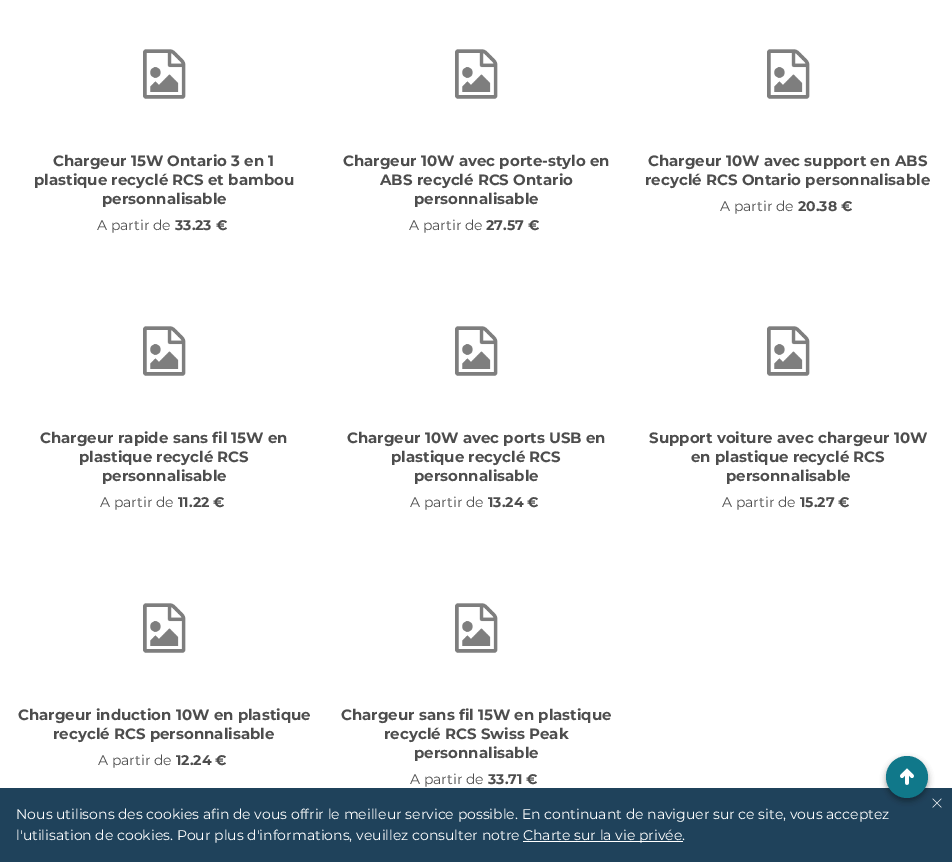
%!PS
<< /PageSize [952 862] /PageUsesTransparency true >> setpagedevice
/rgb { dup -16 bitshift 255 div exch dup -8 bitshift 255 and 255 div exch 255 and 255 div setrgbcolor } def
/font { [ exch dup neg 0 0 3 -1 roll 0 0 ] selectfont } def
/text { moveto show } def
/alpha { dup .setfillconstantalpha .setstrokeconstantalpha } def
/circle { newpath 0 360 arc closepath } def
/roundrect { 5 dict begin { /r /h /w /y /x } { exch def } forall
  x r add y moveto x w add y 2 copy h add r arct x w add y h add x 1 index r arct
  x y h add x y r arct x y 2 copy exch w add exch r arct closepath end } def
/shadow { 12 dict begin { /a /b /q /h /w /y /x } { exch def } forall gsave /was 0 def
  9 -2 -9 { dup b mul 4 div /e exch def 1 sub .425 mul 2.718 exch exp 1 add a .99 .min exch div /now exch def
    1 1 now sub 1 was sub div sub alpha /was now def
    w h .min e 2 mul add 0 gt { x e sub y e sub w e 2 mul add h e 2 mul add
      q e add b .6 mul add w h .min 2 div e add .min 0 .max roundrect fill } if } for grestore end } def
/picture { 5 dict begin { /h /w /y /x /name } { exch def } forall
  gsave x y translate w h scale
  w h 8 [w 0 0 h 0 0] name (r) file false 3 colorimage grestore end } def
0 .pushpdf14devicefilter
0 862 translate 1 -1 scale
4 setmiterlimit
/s1 { /Montserrat-Bold 15 font 16#4D4D4D rgb } def
/s2 { /Montserrat-Regular 14 font 16#4D4D4D rgb } def
/s3 { /Montserrat-Bold 14 font 16#4D4D4D rgb } def
/s4 { /Montserrat-Regular 14 font 16#FFFFFF rgb } def
16#FFFFFF rgb
0 0 952 862 rectfill
(pic1.raw) 143 49 43 50 picture
s1
(Chargeur 15W Ontario 3 en 1) 53 166 text
(plastique recyclé RCS et bambou) 34 185 text
(personnalisable) 102 204 text
s2
(A partir de) 97 230 text
s3
(33.23 €) 175 230 text
(pic1.raw) 455 49 43 50 picture
s1
(Chargeur 10W avec porte-stylo en) 343 166 text
(ABS recyclé RCS Ontario) 380 185 text
(personnalisable) 414 204 text
s2
(A partir de) 409 230 text
s3
(27.57 €) 486 230 text
(pic1.raw) 767 49 43 50 picture
s1
(Chargeur 10W avec support en ABS) 648 166 text
(recyclé RCS Ontario personnalisable) 645 185 text
s2
(A partir de) 720 211 text
s3
(20.38 €) 798 211 text
(pic1.raw) 143 326 43 50 picture
s1
(Chargeur rapide sans fil 15W en) 40 443 text
(plastique recyclé RCS) 79 462 text
(personnalisable) 102 481 text
s2
(A partir de) 100 507 text
s3
(11.22 €) 178 507 text
(pic1.raw) 455 326 43 50 picture
s1
(Chargeur 10W avec ports USB en) 347 443 text
(plastique recyclé RCS) 391 462 text
(personnalisable) 414 481 text
s2
(A partir de) 410 507 text
s3
(13.24 €) 488 507 text
(pic1.raw) 767 326 43 50 picture
s1
(Support voiture avec chargeur 10W) 649 443 text
(en plastique recyclé RCS) 691 462 text
(personnalisable) 726 481 text
s2
(A partir de) 722 507 text
s3
(15.27 €) 800 507 text
(pic1.raw) 143 603 43 50 picture
s1
(Chargeur induction 10W en plastique) 18 720 text
(recyclé RCS personnalisable) 53 739 text
s2
(A partir de) 98 765 text
s3
(12.24 €) 176 765 text
(pic1.raw) 455 603 43 50 picture
s1
(Chargeur sans fil 15W en plastique) 341 720 text
(recyclé RCS Swiss Peak) 384 739 text
(personnalisable) 414 758 text
s2
(A partir de) 410 784 text
s3
(33.71 €) 488 784 text
16#1F425B rgb
0 788 952 74 rectfill
(pic3.raw) 932 798 10 10 picture
16#000000 rgb
886 759 42 42 21 3 0.23 shadow
886 759 42 42 21 3 0.16 shadow
16#10788A rgb
907 777 21 circle fill
(pic2.raw) 900 768 14 17 picture
s4
(Nous utilisons des cookies afin de vous offrir le meilleur service possible. En continuant de naviguer sur ce site, vous acceptez) 16 819 text
(l'utilisation de cookies. Pour plus d'informations, veuillez consulter notre) 16 840 text
523 841 160 1 rectfill
(Charte sur la vie privée.) 523 840 text
.poppdf14devicefilter showpage
